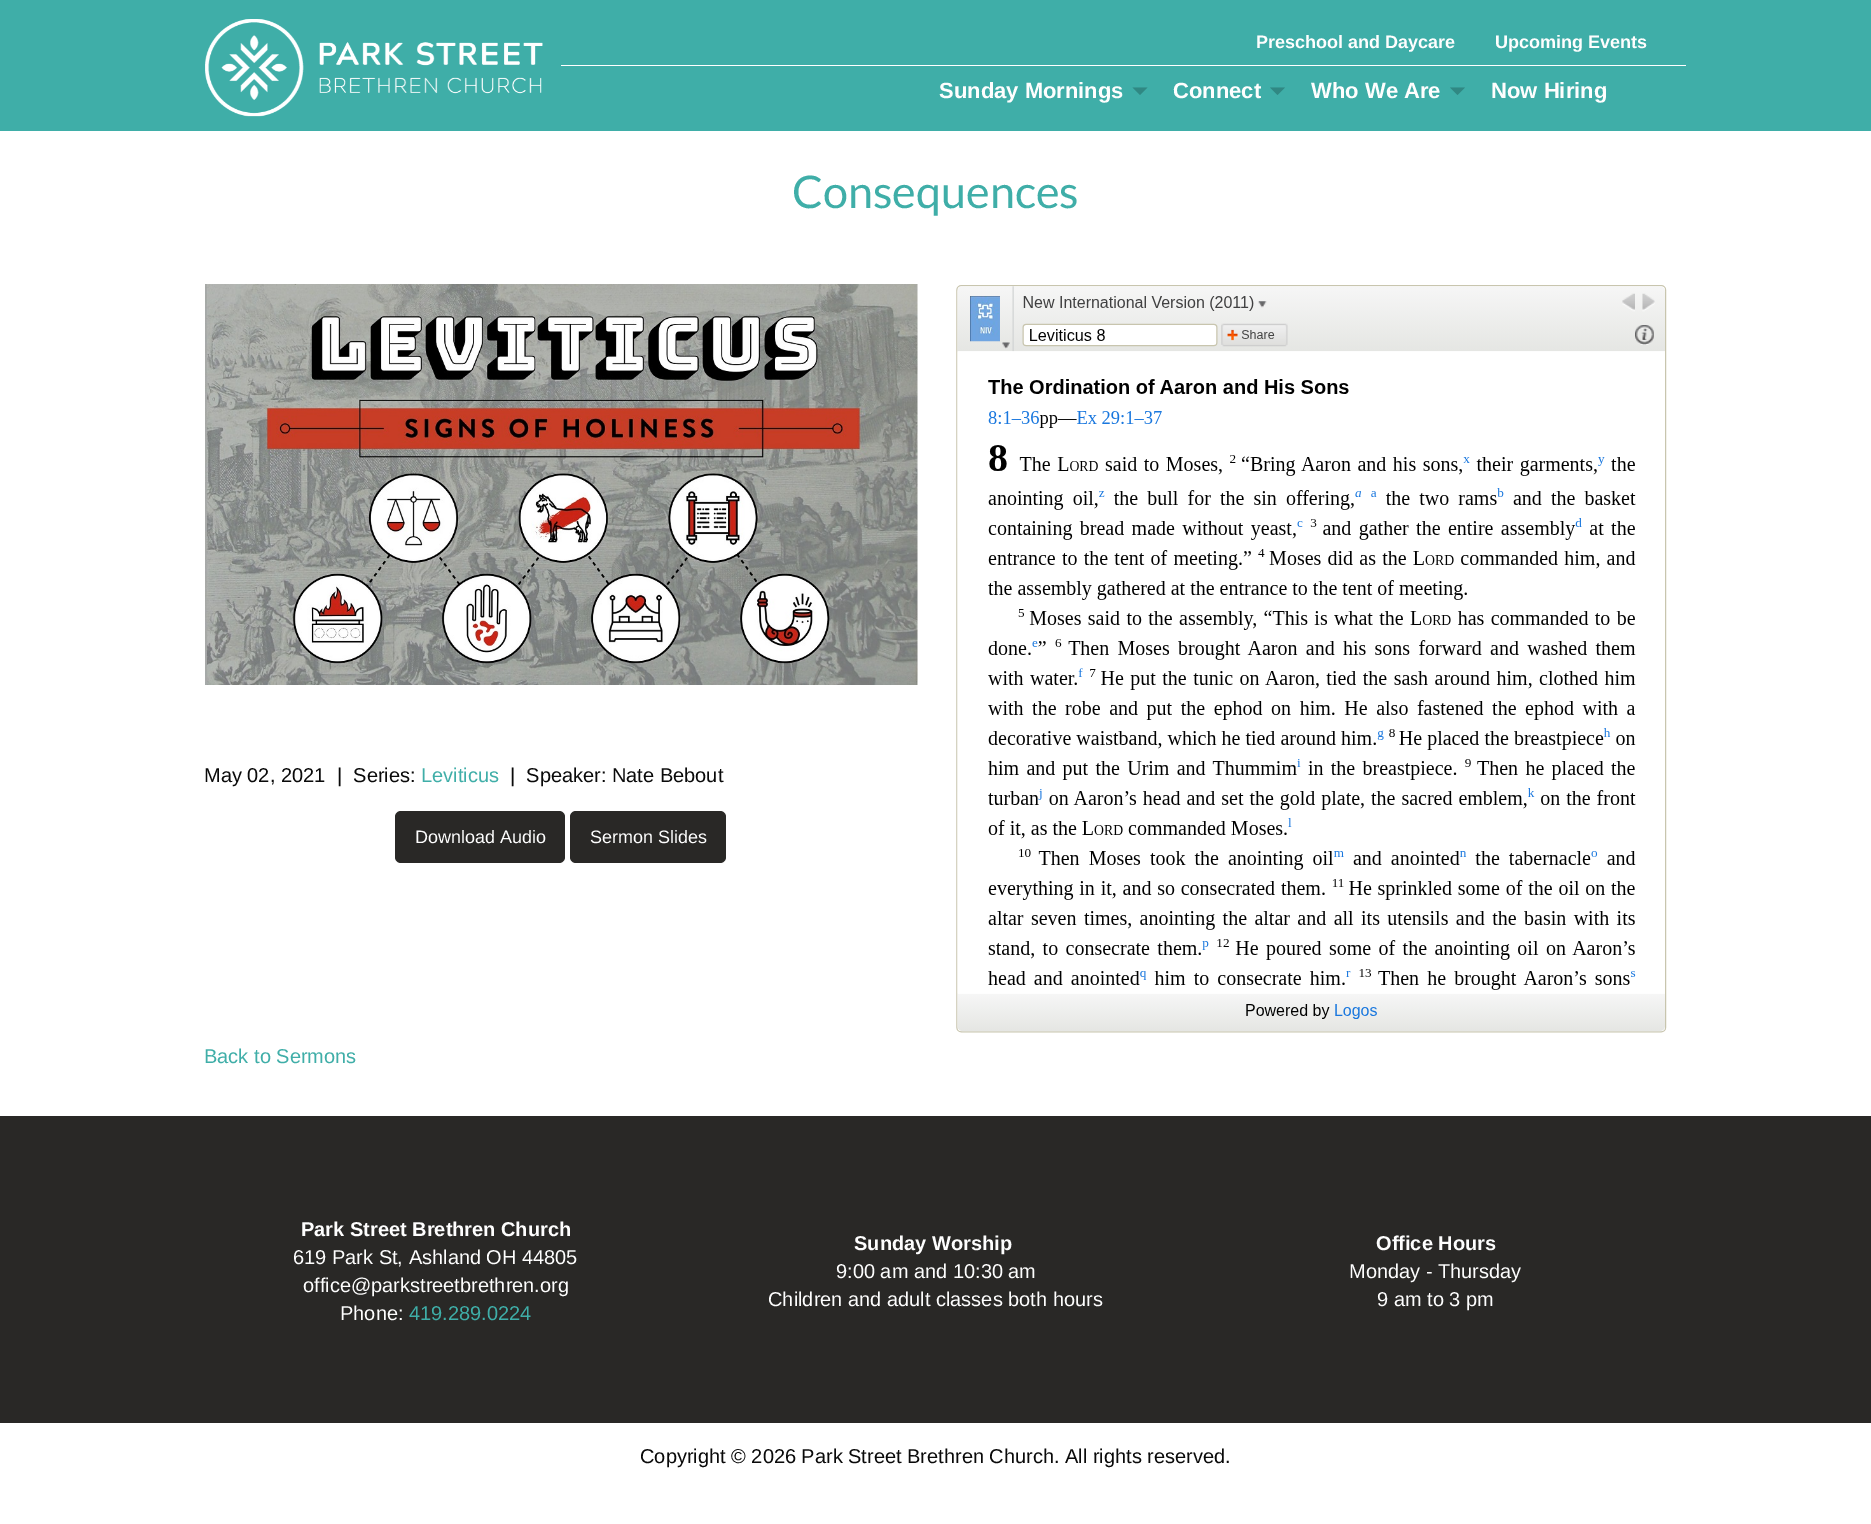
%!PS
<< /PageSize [1871 1524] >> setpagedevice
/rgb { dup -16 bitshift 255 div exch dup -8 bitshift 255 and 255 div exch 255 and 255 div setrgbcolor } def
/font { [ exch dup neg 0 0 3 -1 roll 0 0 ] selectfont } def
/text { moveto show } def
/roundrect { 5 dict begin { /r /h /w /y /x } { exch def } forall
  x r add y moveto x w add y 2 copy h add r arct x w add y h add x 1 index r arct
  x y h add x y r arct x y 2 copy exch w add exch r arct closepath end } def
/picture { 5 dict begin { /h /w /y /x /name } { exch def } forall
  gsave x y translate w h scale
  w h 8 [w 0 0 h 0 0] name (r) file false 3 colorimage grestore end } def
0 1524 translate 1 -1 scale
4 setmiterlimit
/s1 { /LiberationSans-Bold 18 font 16#FEFEFE rgb } def
/s2 { /LiberationSans-Bold 22 font 16#FEFEFE rgb } def
/s3 { /Lato-Regular 45 font 16#3FAEA8 rgb } def
/s4 { /LiberationSans-Regular 20 font 16#0A0A0A rgb } def
/s5 { /LiberationSans-Regular 20 font 16#3FAEA8 rgb } def
/s6 { /LiberationSans-Regular 18 font 16#FEFEFE rgb } def
/s7 { /LiberationSans-Bold 20 font 16#FEFEFE rgb } def
/s8 { /LiberationSans-Regular 20 font 16#FEFEFE rgb } def
16#FFFFFF rgb
0 0 1871 1524 rectfill
16#3FAEA8 rgb
0 0 1871 131 rectfill
(pic1.raw) 205 19 338 98 picture
s1
(Preschool and Daycare) 1256 48 text
(Upcoming Events) 1495 48 text
16#FFFFFF rgb
561 65 1125 1 rectfill
s2
(Sunday Mornings) 939 98 text
16#308883 rgb
1132.5 87.5 moveto 1147.5 87.5 lineto 1140 95 lineto closepath fill
s2
(Connect) 1173 98 text
16#308883 rgb
1270 87.5 moveto 1285 87.5 lineto 1277.5 95 lineto closepath fill
s2
(Who We Are) 1311 98 text
16#308883 rgb
1450 87.5 moveto 1465 87.5 lineto 1457.5 95 lineto closepath fill
s2
(Now Hiring) 1491 98 text
s3
(Consequences) 792 208 text
(pic2.raw) 205 284 713 401 picture
s4
(May 02, 2021) 204 782 text
(|  Series:) 337 782 text
s5
(Leviticus) 421 782 text
s4
(|  Speaker: Nate Bebout) 510 782 text
16#292826 rgb
395 811 170 52 6 roundrect fill
s6
(Download Audio) 415 843 text
16#292826 rgb
570 811 156 52 6 roundrect fill
s6
(Sermon Slides) 590 843 text
(pic3.raw) 956 285 711 748 picture
s5
(Back to Sermons) 204 1063 text
16#292826 rgb
0 1116 1871 307 rectfill
s7
(Park Street Brethren Church) 301 1236 text
s8
(619 Park St, Ashland OH 44805) 293 1264 text
(office@parkstreetbrethren.org) 303 1292 text
(Phone:) 340 1320 text
s5
(419.289.0224) 409 1320 text
s7
(Sunday Worship) 854 1250 text
s8
(9:00 am and 10:30 am) 836 1278 text
(Children and adult classes both hours) 768 1306 text
s7
(Office Hours) 1376 1250 text
s8
(Monday - Thursday) 1349 1278 text
(9 am to 3 pm) 1377 1306 text
s4
(Copyright © 2026 Park Street Brethren Church. All rights reserved.) 640 1463 text
showpage
